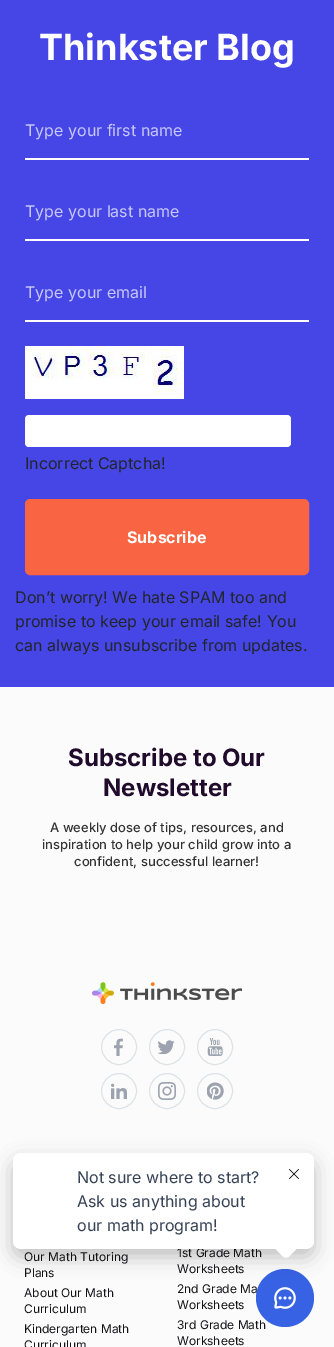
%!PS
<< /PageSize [334 1347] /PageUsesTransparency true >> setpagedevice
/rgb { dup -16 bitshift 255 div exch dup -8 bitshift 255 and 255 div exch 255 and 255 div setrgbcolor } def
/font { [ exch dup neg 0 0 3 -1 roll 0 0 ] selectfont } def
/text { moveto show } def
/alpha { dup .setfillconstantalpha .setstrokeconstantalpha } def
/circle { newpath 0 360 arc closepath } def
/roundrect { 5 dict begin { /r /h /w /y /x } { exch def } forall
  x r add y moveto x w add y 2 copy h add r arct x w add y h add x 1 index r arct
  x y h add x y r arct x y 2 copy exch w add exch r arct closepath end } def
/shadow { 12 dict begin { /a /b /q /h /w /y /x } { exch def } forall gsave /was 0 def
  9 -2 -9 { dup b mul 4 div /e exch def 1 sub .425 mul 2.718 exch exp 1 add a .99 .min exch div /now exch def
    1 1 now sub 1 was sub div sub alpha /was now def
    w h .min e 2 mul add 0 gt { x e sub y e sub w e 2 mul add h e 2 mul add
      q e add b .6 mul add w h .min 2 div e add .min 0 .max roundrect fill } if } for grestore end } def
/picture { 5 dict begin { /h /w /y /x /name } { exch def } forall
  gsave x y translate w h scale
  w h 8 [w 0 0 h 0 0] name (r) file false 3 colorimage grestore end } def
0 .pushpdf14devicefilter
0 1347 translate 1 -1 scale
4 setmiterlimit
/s1 { /Inter-Bold 36 font 16#FFFFFF rgb } def
/s2 { /Inter-Regular 16 font 16#C8C8F8 rgb } def
/s3 { /Inter-Regular 16 font 16#212529 rgb } def
/s4 { /Inter-Bold 16 font 16#FFFFFF rgb } def
/s5 { /Inter-Bold 24 font 16#210B2C rgb } def
/s6 { /Inter-Medium 13 font 16#333333 rgb } def
/s7 { /Inter-Regular 12 font 16#131316 rgb } def
/s8 { /Inter-Regular 16 font 16#344054 rgb } def
16#4646E6 rgb
0 0 334 1347 rectfill
s1
(Thinkster Blog) 39 60 text
25 158 284 2 rectfill
s2
(Type your first name) 25 136 text
16#FFFFFF rgb
25 239 284 2 rectfill
s2
(Type your last name) 25 217 text
16#FFFFFF rgb
25 320 284 2 rectfill
s2
(Type your email) 25 298 text
(pic1.raw) 25 346 159 53 picture
16#FFFFFF rgb
25 415 266 32 4 roundrect fill
s3
(Incorrect Captcha!) 25 469 text
16#F96542 rgb
25.5 499.5 283 75 4.5 roundrect gsave fill grestore
stroke
s4
(Subscribe) 127 543 text
s3
(Don’t worry! We hate SPAM too and) 15 603 text
(promise to keep your email safe! You) 15 627 text
(can always unsubscribe from updates.) 15 651 text
16#FBFBFB rgb
0 687 334 660 rectfill
s5
(Subscribe to Our) 68 766 text
(Newsletter) 103 796 text
s6
(A weekly dose of tips, resources, and) 50 832 text
(inspiration to help your child grow into a) 42 849 text
(confident, successful learner!) 74 866 text
(pic2.raw) 92 982 150 23 picture
16#DEE2E6 rgb
119 1047 17.5 circle stroke
(pic3.raw) 114 1038 9 18 picture
167 1047 17.5 circle stroke
(pic4.raw) 158 1040 17 14 picture
215 1047 17.5 circle stroke
(pic5.raw) 207 1038 16 18 picture
119 1091 17.5 circle stroke
(pic6.raw) 111 1083 16 16 picture
167 1091 17.5 circle stroke
(pic7.raw) 158 1082 18 18 picture
215 1091 17.5 circle stroke
(pic8.raw) 207 1082 17 18 picture
s7
(Our Math Tutoring) 24 1261 text
(Plans) 24 1277 text
(About Our Math) 24 1297 text
(Curriculum) 24 1313 text
(Kindergarten Math) 24 1333 text
(Curriculum) 24 1349 text
(1st Grade Math) 177 1257 text
(Worksheets) 177 1273 text
(2nd Grade Ma) 177 1293 text
(Worksheets) 177 1309 text
(3rd Grade Math) 177 1329 text
(Worksheets) 177 1345 text
16#3662E3 rgb
285 1298 29 circle fill
(pic10.raw) 274 1287 22 22 picture
16#000000 rgb
13 1161 301 96 8 10 0.24 shadow
16#FFFFFF rgb
13 1153 301 96 8 roundrect fill
s8
(Not sure where to start?) 77 1183 text
(Ask us anything about) 77 1207 text
(our math program!) 77 1231 text
16#FFFFFF rgb
289 1233.5 moveto 297.5 1242 lineto 299 1243.5 299 1246.5 297.5 1248 curveto 289 1256.5 lineto 287.5 1258 284.5 1258 283 1256.5 curveto 274.5 1248 lineto 273 1246.5 273 1243.5 274.5 1242 curveto 283 1233.5 lineto 284.5 1232 287.5 1232 289 1233.5 curveto closepath fill
(pic9.raw) 289 1169 10 10 picture
.poppdf14devicefilter showpage
